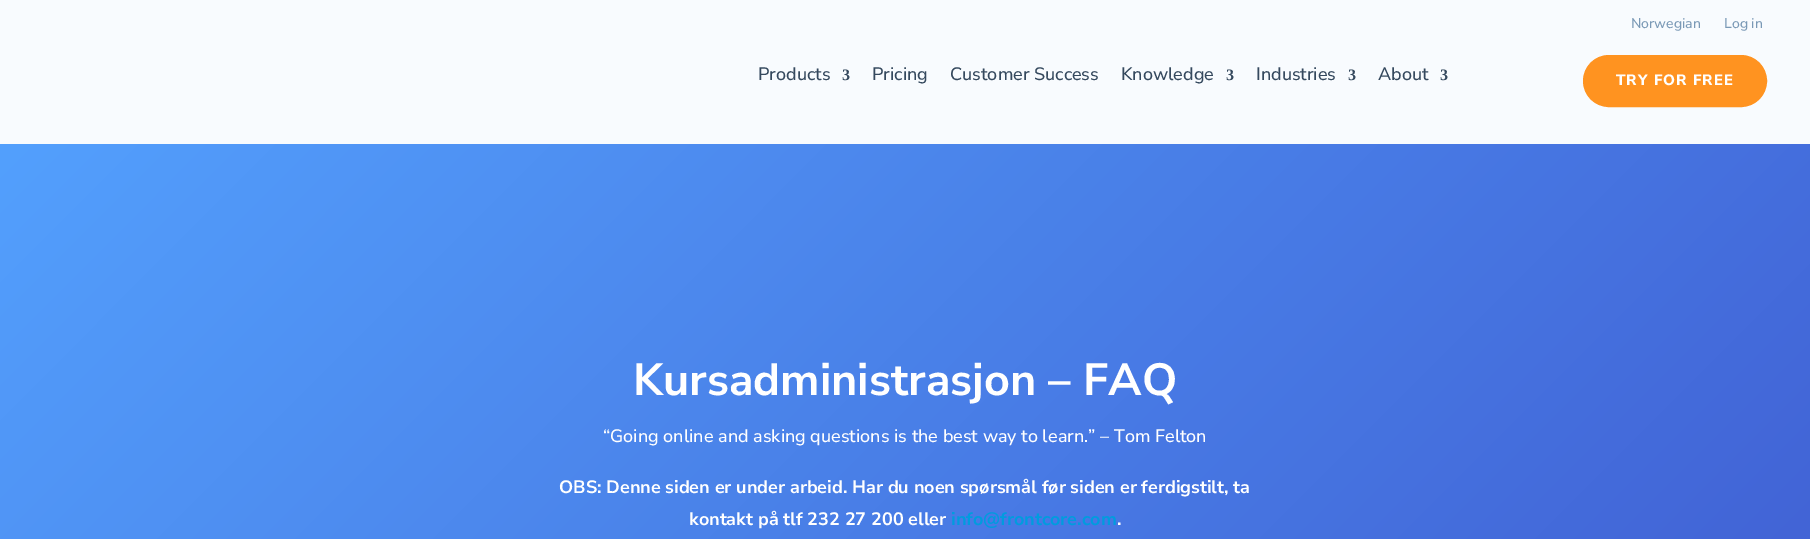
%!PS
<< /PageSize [1810 539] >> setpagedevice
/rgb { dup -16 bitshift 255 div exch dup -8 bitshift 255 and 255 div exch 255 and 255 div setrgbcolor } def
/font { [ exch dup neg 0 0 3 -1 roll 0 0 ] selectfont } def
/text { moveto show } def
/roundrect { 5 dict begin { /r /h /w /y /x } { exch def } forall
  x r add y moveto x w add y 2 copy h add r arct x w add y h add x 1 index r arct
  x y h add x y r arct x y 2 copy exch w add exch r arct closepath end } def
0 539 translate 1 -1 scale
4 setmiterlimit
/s1 { /NunitoSans-Medium 14 font 16#7A99B6 rgb } def
/s2 { /NunitoSans-Medium 18 font 16#35495E rgb } def
/s3 { /LiberationSerif-Bold 16 font 16#35495E rgb } def
/s4 { /NunitoSans-Bold 45 font 16#FFFFFF rgb } def
/s5 { /NunitoSans-Medium 18 font 16#FFFFFF rgb } def
/s6 { /NunitoSans-Bold 18 font 16#FFFFFF rgb } def
/s7 { /NunitoSans-Bold 18 font 16#009CDF rgb } def
16#FFFFFF rgb
0 0 1810 539 rectfill
16#F8FBFE rgb
0 0 1810 144 rectfill
s1
(Norwegian) 1631 28 text
(Log in) 1724 28 text
s2
(Products) 758 80 text
s3
(3) 842 80 text
s2
(Pricing) 872 80 text
(Customer Success) 950 80 text
(Knowledge) 1121 80 text
s3
(3) 1226 80 text
s2
(Industries) 1256 80 text
s3
(3) 1348 80 text
s2
(About) 1378 80 text
s3
(3) 1440 80 text
16#FF9320 rgb
1584.5 56.5 181 49 24.5 roundrect gsave fill grestore
3 setlinewidth
stroke
/NunitoSans-ExtraBold 15 font
16#FFFFFF rgb
1616 85 moveto 1 0 (TRY FOR FREE) ashow
gsave 0 144 moveto 1810 144 lineto 1810 539 lineto 0 539 lineto closepath clip newpath
<< /ShadingType 2 /ColorSpace /DeviceRGB /Coords [325 -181 1485 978] /Extend [true true] /Function << /FunctionType 2 /Domain [0 1] /C0 [0.325 0.627 0.992] /C1 [0.255 0.38 0.831] /N 1 >> >> shfill grestore
s4
(Kursadministrasjon – FAQ) 633 395 text
s5
(“Going online and asking questions is the best way to learn.” – Tom Felton) 603 442 text
s6
(OBS: Denne siden er under arbeid. Har du noen spørsmål før siden er ferdigstilt, ta) 559 493 text
(kontakt på tlf 232 27 200 eller) 689 525 text
s7
(info@frontcore.com) 951 525 text
s6
(.) 1117 525 text
showpage
